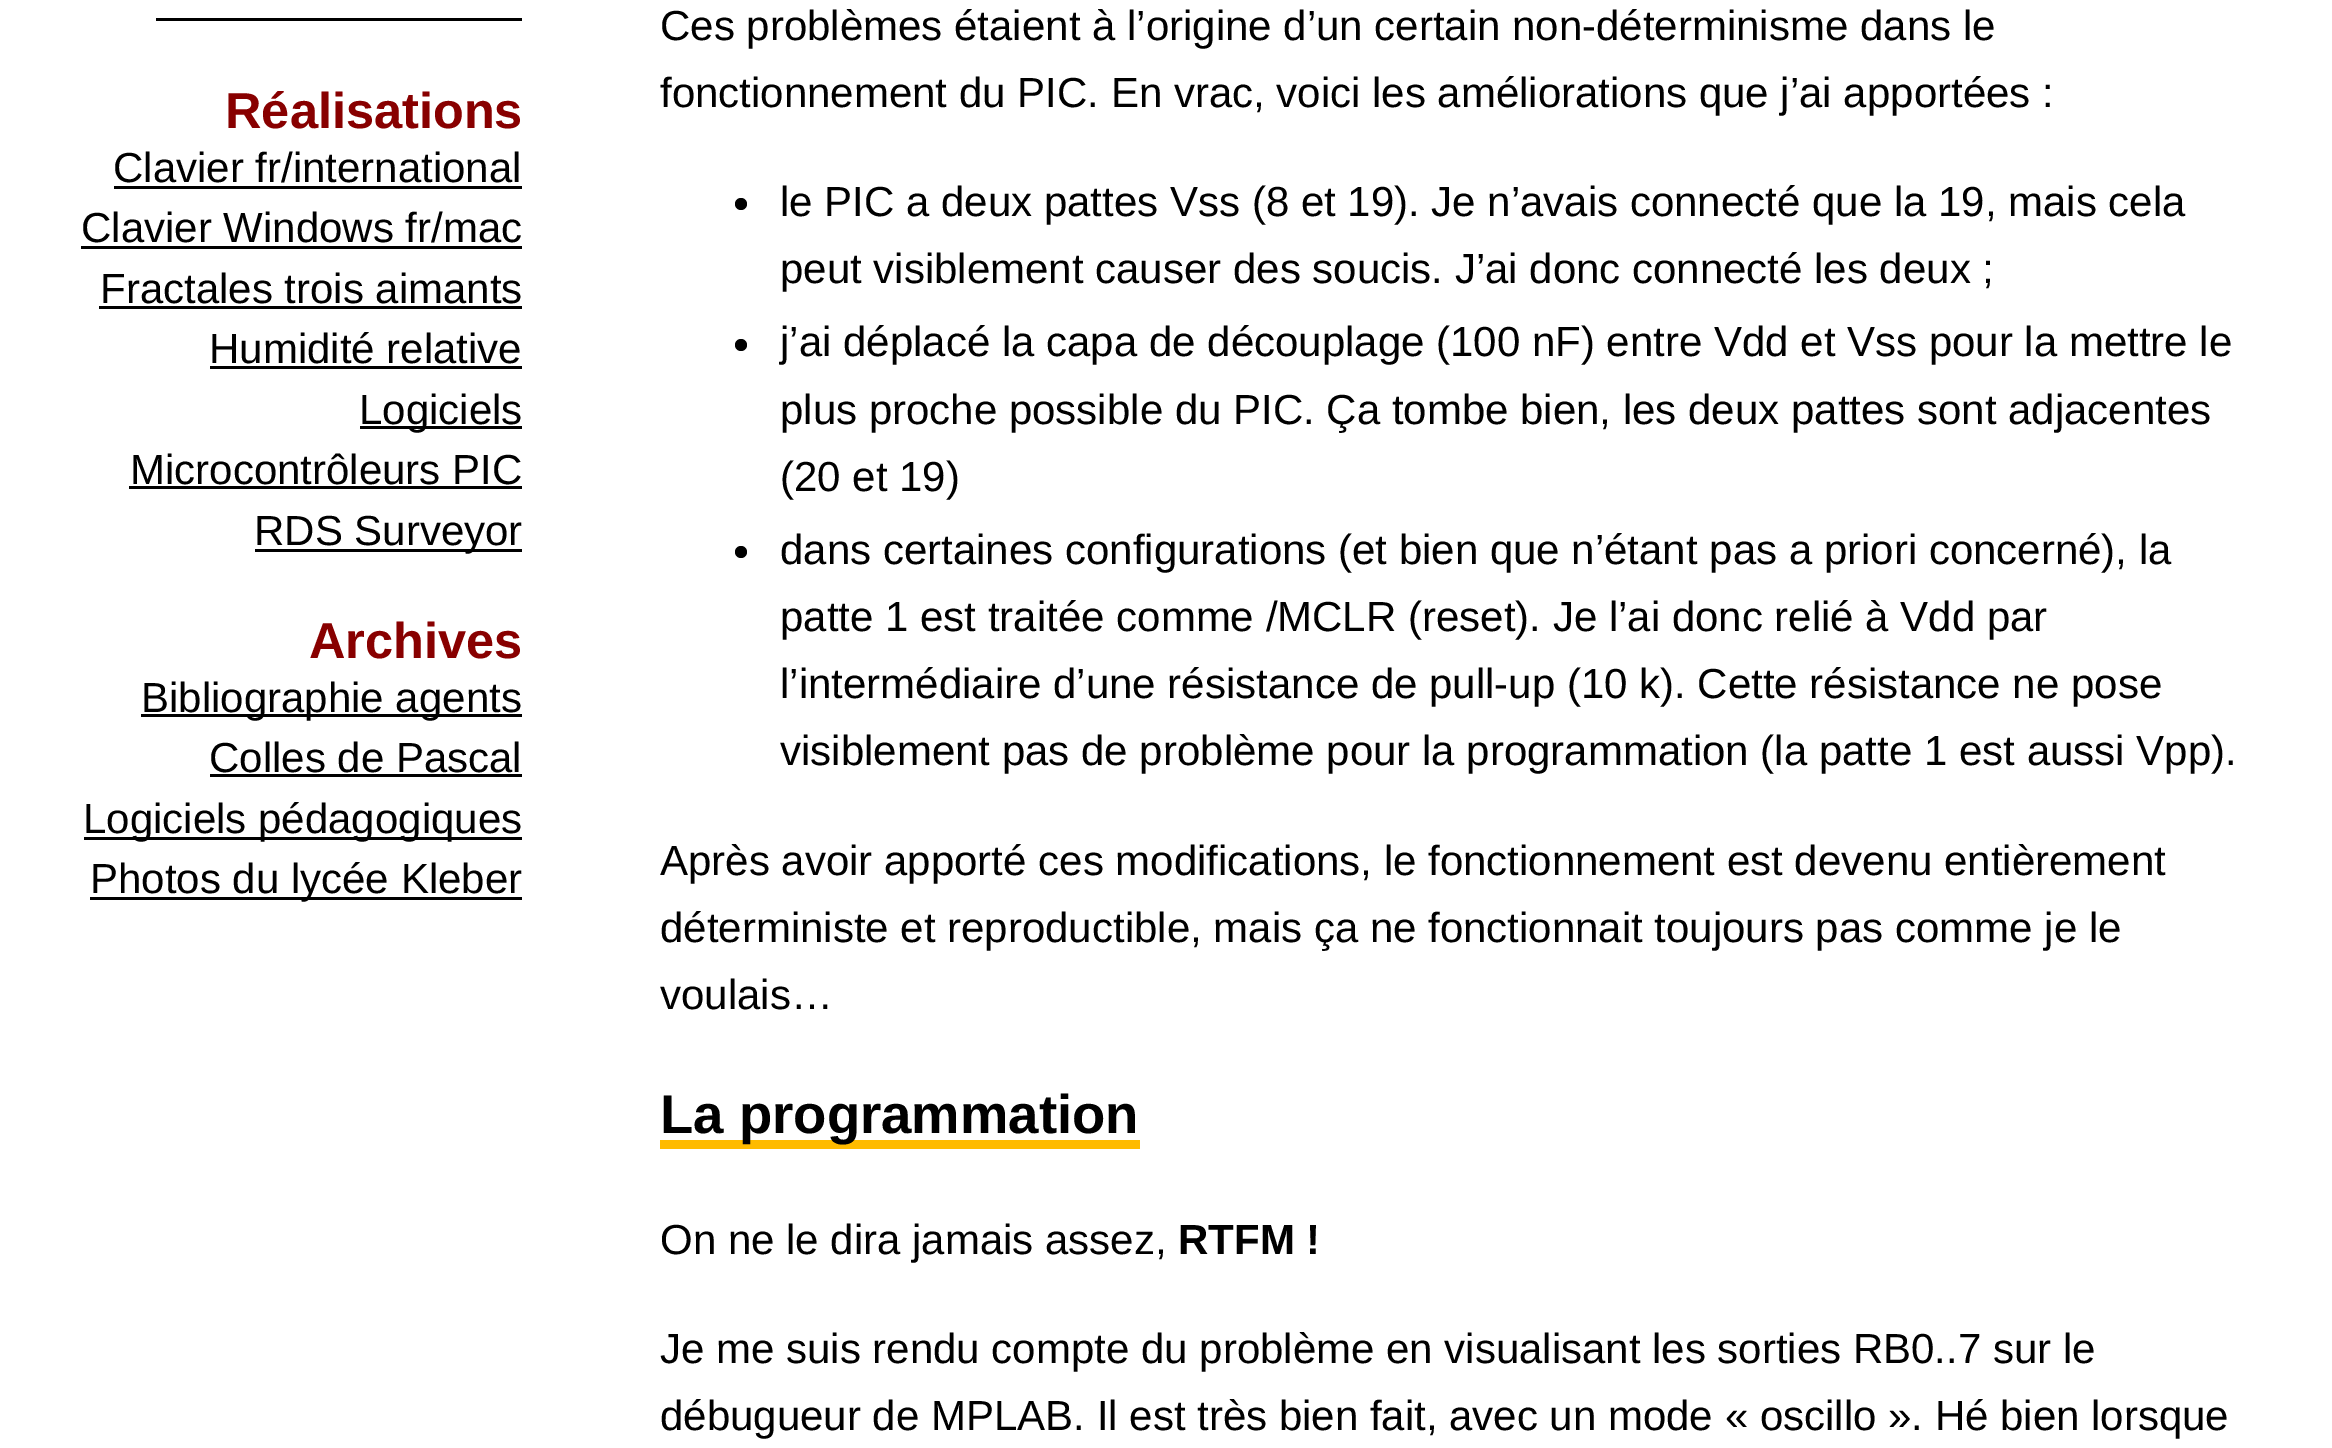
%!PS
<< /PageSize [2332 1448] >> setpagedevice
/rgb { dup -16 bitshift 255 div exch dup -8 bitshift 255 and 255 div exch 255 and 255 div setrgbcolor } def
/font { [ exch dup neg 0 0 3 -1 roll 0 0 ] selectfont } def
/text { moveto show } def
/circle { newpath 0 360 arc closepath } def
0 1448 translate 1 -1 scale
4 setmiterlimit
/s1 { /LiberationSans-Bold 50.5 font 16#880000 rgb } def
/s2 { /LiberationSans-Regular 42 font 16#000000 rgb } def
/s3 { /LiberationSans-Bold 54.5 font 16#000000 rgb } def
/s4 { /LiberationSans-Bold 42 font 16#000000 rgb } def
16#FFFFFF rgb
0 0 2332 1448 rectfill
16#000000 rgb
156 18 366 3 rectfill
s1
(Réalisations) 225 128 text
s2
(Clavier fr/international) 113 182 text
114 186 408 3 rectfill
(Clavier Windows fr/mac) 81 242 text
81 246 441 3 rectfill
(Fractales trois aimants) 100 303 text
99 306 423 3 rectfill
(Humidité relative) 209 363 text
210 366 312 3 rectfill
360 426 162 3 rectfill
(Logiciels) 359 424 text
(Microcontrôleurs PIC) 130 484 text
129 486 393 3 rectfill
255 549 267 3 rectfill
(RDS Surveyor) 254 545 text
s1
(Archives) 309 658 text
16#000000 rgb
141 714 381 3 rectfill
s2
(Bibliographie agents) 141 712 text
(Colles de Pascal) 209 772 text
210 774 312 3 rectfill
84 837 438 3 rectfill
(Logiciels pédagogiques) 83 833 text
90 897 432 3 rectfill
(Photos du lycée Kleber) 90 893 text
(Ces problèmes étaient à l’origine d’un certain non-déterminisme dans le) 660 40 text
(fonctionnement du PIC. En vrac, voici les améliorations que j’ai apportées :) 660 107 text
741 204 6 circle fill
(le PIC a deux pattes Vss \(8 et 19\). Je n’avais connecté que la 19, mais cela) 780 216 text
(peut visiblement causer des soucis. J’ai donc connecté les deux ;) 780 283 text
741 345 6 circle fill
(j’ai déplacé la capa de découplage \(100 nF\) entre Vdd et Vss pour la mettre le) 780 356 text
(plus proche possible du PIC. Ça tombe bien, les deux pattes sont adjacentes) 780 424 text
(\(20 et 19\)) 780 491 text
741 552 6 circle fill
(dans certaines configurations \(et bien que n’étant pas a priori concerné\), la) 780 564 text
(patte 1 est traitée comme /MCLR \(reset\). Je l’ai donc relié à Vdd par) 780 631 text
(l’intermédiaire d’une résistance de pull-up \(10 k\). Cette résistance ne pose) 780 698 text
(visiblement pas de problème pour la programmation \(la patte 1 est aussi Vpp\).) 780 765 text
(Après avoir apporté ces modifications, le fonctionnement est devenu entièrement) 660 875 text
(déterministe et reproductible, mais ça ne fonctionnait toujours pas comme je le) 660 942 text
(voulais…) 660 1009 text
16#FFBB00 rgb
660 1140 480 9 rectfill
s3
(La programmation) 660 1133 text
s2
(On ne le dira jamais assez,) 660 1254 text
s4
(RTFM !) 1178 1254 text
s2
(Je me suis rendu compte du problème en visualisant les sorties RB0..7 sur le) 660 1363 text
(débugueur de MPLAB. Il est très bien fait, avec un mode « oscillo ». Hé bien lorsque) 660 1430 text
showpage
